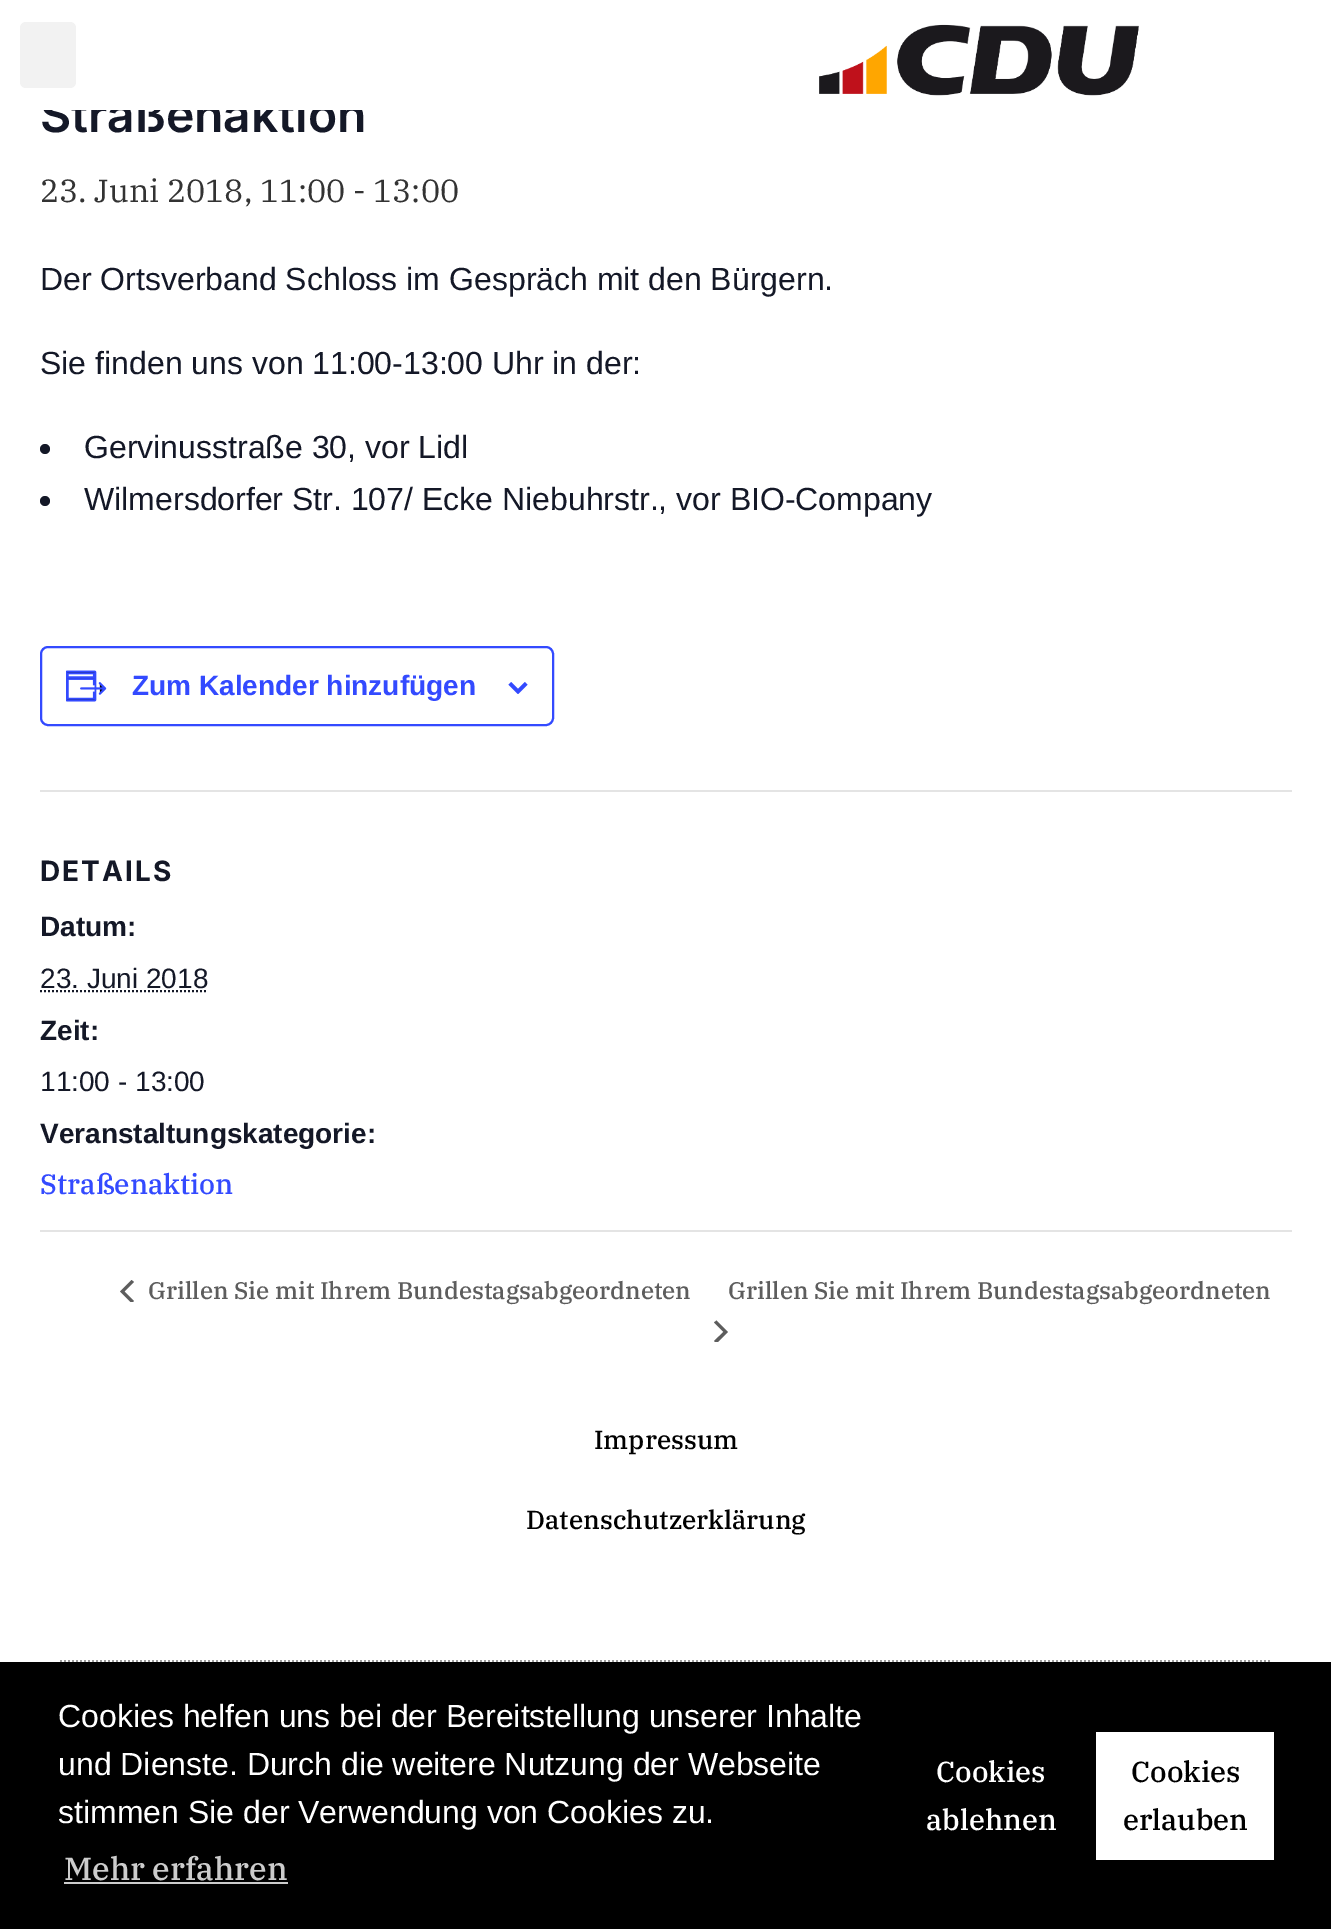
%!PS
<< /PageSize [1331 1929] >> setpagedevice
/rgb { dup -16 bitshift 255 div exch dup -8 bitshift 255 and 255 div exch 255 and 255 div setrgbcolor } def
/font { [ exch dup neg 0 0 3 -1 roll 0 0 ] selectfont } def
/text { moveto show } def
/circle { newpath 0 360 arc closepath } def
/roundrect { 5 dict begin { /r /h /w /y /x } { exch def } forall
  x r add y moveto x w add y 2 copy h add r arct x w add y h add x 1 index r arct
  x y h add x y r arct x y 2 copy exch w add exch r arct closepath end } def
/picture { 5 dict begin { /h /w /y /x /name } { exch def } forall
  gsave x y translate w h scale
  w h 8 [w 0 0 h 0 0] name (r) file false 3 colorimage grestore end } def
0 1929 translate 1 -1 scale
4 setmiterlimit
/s1 { /Inter-SemiBold 48 font 16#141827 rgb } def
/s2 { /IBMPlexSerif-Regular 32 font 16#333333 rgb } def
/s3 { /LiberationSans-Regular 32 font 16#141827 rgb } def
/s4 { /LiberationSans-Bold 28 font 16#334AFF rgb } def
/s5 { /LiberationSans-Bold 28 font 16#141827 rgb } def
/s6 { /LiberationSans-Regular 28 font 16#141827 rgb } def
/s7 { /IBMPlexSerif-Medium 28 font 16#334AFF rgb } def
/s8 { /IBMPlexSerif-Medium 24 font 16#5D5D5D rgb } def
/s9 { /IBMPlexSerif-Medium 26 font 16#000000 rgb } def
/s10 { /LiberationSans-Regular 32 font 16#FFFFFF rgb } def
/s11 { /IBMPlexSerif-Medium 32 font 16#CCCCCC rgb } def
/s12 { /IBMPlexSerif-Medium 29 font 16#FFFFFF rgb } def
/s13 { /IBMPlexSerif-Medium 29 font 16#000000 rgb } def
16#FFFFFF rgb
0 0 1331 1929 rectfill
s1
(Straßenaktion) 40 132 text
16#FFFFFF rgb
43 95 319 15 rectfill
16#F2F2F2 rgb
20 22 56 66 6 roundrect fill
(pic1.raw) 819 24 320 72 picture
s2
(23. Juni 2018, 11:00 - 13:00) 40 202 text
s3
(Der Ortsverband Schloss im Gespräch mit den Bürgern.) 40 290 text
(Sie finden uns von 11:00-13:00 Uhr in der:) 40 374 text
45 449 5 circle fill
(Gervinusstraße 30, vor Lidl) 84 458 text
45 501 5 circle fill
(Wilmersdorfer Str. 107/ Ecke Niebuhrstr., vor BIO-Company) 84 510 text
16#334AFF rgb
2 setlinewidth
41 647 512 78 7 roundrect stroke
(pic2.raw) 66 670 41 32 picture
s4
(Zum Kalender hinzufügen) 132 695 text
(pic3.raw) 508 682 20 12 picture
16#E4E4E4 rgb
40 790 1252 2 rectfill
/Inter-Bold 28 font
16#141827 rgb
40 881 moveto 2 0 (DETAILS) ashow
s5
(Datum:) 40 936 text
s6
(23. Juni 2018) 40 988 text
[2 2] 0 setdash
40 991 moveto 208 991 lineto stroke
s5
(Zeit:) 40 1040 text
s6
(11:00 - 13:00) 40 1091 text
s5
(Veranstaltungskategorie:) 40 1143 text
s7
(Straßenaktion) 40 1194 text
16#E4E4E4 rgb
40 1230 1252 2 rectfill
gsave
120 1280 14 22 rectclip
16#5D5D5D rgb
134 1301 moveto 131.5 1303 lineto 120 1291.5 lineto 131.5 1280 lineto 134 1282 lineto 124.5 1291.5 lineto closepath fill
grestore
s8
(Grillen Sie mit Ihrem Bundestagsabgeordneten) 148 1299 text
(Grillen Sie mit Ihrem Bundestagsabgeordneten) 728 1299 text
gsave
714 1320 14 22 rectclip
714 1322.5 moveto 716.5 1320.5 lineto 728 1332 lineto 716.5 1343.5 lineto 714 1341 lineto 723.5 1332 lineto closepath fill
grestore
16#9B9B9B rgb
60 1661 moveto 1272 1661 lineto stroke
s9
(Impressum) 594 1449 text
(Datenschutzerklärung) 526 1529 text
0 1662 1331 267 rectfill
s10
(Cookies helfen uns bei der Bereitstellung unserer Inhalte) 58 1727 text
(und Dienste. Durch die weitere Nutzung der Webseite) 58 1775 text
(stimmen Sie der Verwendung von Cookies zu.) 58 1823 text
s11
(Mehr erfahren) 64 1880 text
64 1882 224 2 rectfill
s12
(Cookies) 936 1782 text
(ablehnen) 926 1830 text
1096 1732 178 128 rectfill
s13
(Cookies) 1131 1782 text
(erlauben) 1123 1830 text
showpage
